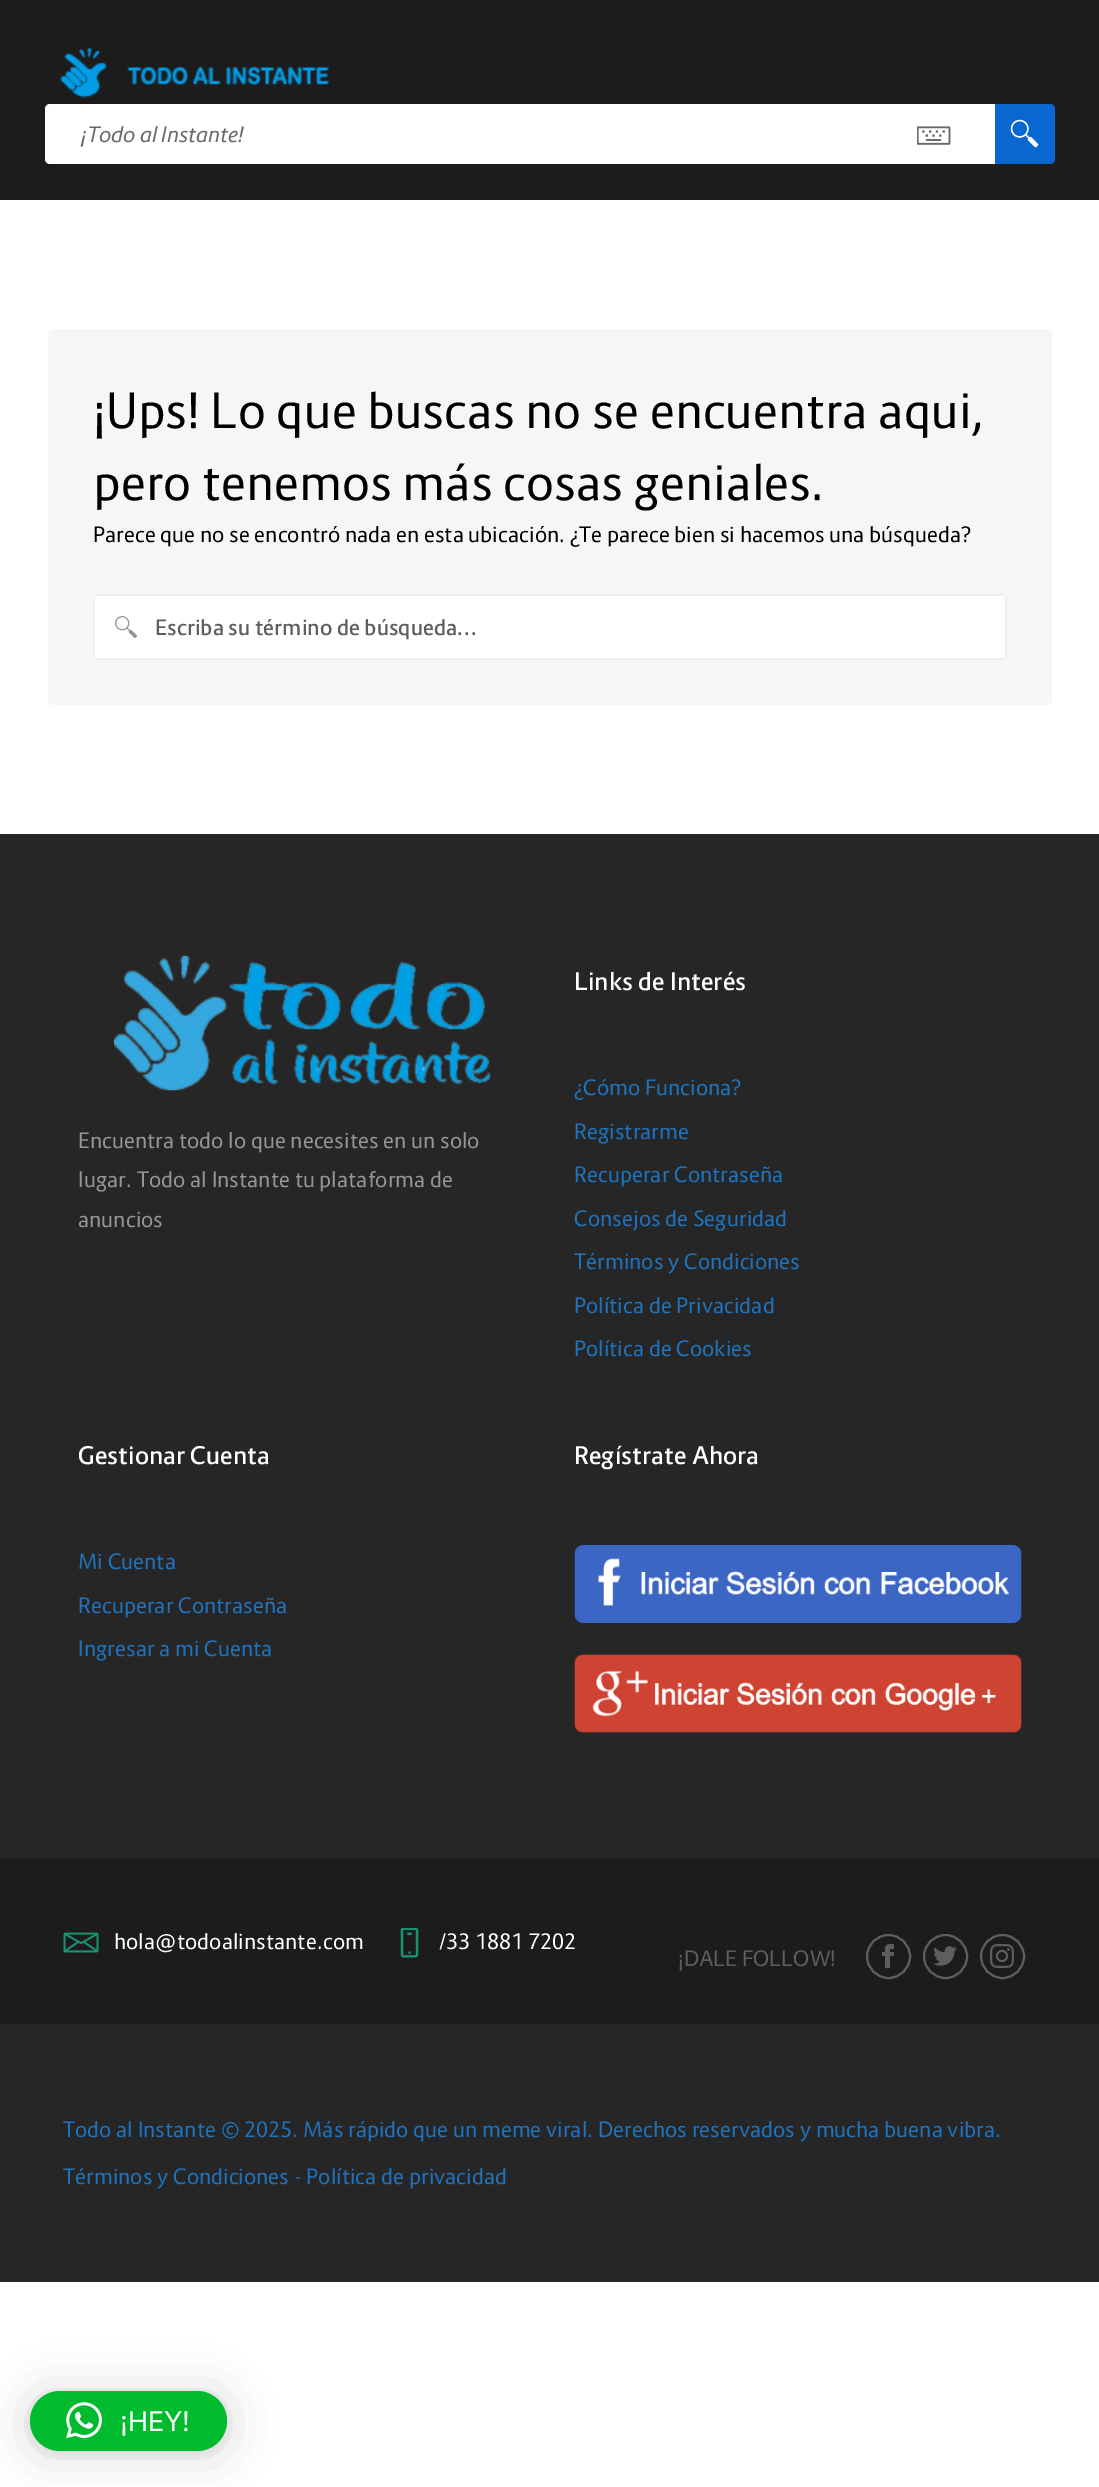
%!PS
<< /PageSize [1099 2487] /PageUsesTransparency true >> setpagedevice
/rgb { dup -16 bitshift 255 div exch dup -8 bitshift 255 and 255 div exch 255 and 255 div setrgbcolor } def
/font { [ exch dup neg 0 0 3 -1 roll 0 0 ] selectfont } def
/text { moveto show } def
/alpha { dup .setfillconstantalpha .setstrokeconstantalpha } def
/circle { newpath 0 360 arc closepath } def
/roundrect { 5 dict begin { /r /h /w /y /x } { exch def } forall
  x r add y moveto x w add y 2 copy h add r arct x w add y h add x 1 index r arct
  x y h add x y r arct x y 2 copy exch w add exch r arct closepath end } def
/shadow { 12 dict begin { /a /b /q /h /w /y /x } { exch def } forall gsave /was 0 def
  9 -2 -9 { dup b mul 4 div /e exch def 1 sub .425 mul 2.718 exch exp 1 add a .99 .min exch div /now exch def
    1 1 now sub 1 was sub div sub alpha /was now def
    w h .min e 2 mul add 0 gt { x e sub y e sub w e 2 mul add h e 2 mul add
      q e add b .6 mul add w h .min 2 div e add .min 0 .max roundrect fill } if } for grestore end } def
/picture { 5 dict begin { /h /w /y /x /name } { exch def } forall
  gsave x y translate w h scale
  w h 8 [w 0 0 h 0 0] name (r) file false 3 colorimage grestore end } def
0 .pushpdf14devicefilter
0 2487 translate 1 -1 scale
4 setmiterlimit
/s1 { /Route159-Italic 21 font 16#686868 rgb } def
/s2 { /Route159-Regular 48 font 16#000000 rgb } def
/s3 { /Route159-Regular 21 font 16#000000 rgb } def
/s4 { /Route159-SemiBold 21 font 16#5E5E5E rgb } def
/s5 { /Route159-Regular 21 font 16#959595 rgb } def
/s6 { /Route159-SemiBold 24 font 16#FFFFFF rgb } def
/s7 { /Route159-Regular 21 font 16#1E73BE rgb } def
/s8 { /Route159-Regular 21 font 16#FFFFFF rgb } def
/s9 { /Route159-Regular 21 font 16#5E5E5E rgb } def
/s10 { /Inter-Regular 27 font 16#FFFFFF rgb } def
16#FFFFFF rgb
0 0 1099 2487 rectfill
16#1C1C1C rgb
0 0 1099 200 rectfill
(pic1.raw) 59 47 270 51 picture
16#FFFFFF rgb
45 104 954 60 5 roundrect fill
s1
(¡Todo al Instante!) 81 142 text
(pic2.raw) 917 126 34 19 picture
16#0967D2 rgb
995 104 moveto 1050 104 lineto 1053 104 1055 106 1055 109 curveto 1055 159 lineto 1055 162 1053 164 1050 164 curveto 995 164 lineto closepath fill
(pic3.raw) 1010 119 29 29 picture
16#F6F6F6 rgb
48 329 1004 376 5 roundrect fill
s2
(¡Ups! Lo que buscas no se encuentra aqui,) 93 428 text
(pero tenemos más cosas geniales.) 93 500 text
s3
(Parece que no se encontró nada en esta ubicación. ¿Te parece bien si hacemos una búsqueda?) 93 542 text
16#FFFFFF rgb
93 594 914 66 5 roundrect fill
16#EFEFEF rgb
98 594 moveto 95 594 93 596 93 599 curveto 93 655 lineto 93 658 95 660 98 660 curveto 1002 660 lineto 1005 660 1007 658 1007 655 curveto 1007 599 lineto 1007 596 1005 594 1002 594 curveto closepath 95 596 moveto 95 658 lineto 1005 658 lineto 1005 596 lineto closepath eofill
(pic4.raw) 115 616 22 22 picture
s4
(Escriba su término de búsqueda...) 155 635 text
16#262626 rgb
0 834 1099 1025 rectfill
(pic5.raw) 114 955 377 136 picture
s5
(Encuentra todo lo que necesites en un solo) 78 1148 text
(lugar. Todo al Instante tu plataforma de) 78 1187 text
(anuncios) 78 1227 text
s6
(Links de Interés) 574 990 text
s7
(¿Cómo Funciona?) 574 1095 text
(Registrarme) 574 1139 text
(Recuperar Contraseña) 574 1182 text
(Consejos de Seguridad) 574 1226 text
(Términos y Condiciones) 574 1269 text
(Política de Privacidad) 574 1313 text
(Política de Cookies) 574 1356 text
s6
(Gestionar Cuenta) 78 1464 text
s7
(Mi Cuenta) 78 1569 text
(Recuperar Contraseña) 78 1613 text
(Ingresar a mi Cuenta) 78 1656 text
s6
(Regístrate Ahora) 574 1464 text
(pic6.raw) 574 1545 448 78 picture
(pic7.raw) 574 1654 448 79 picture
16#1C1C1C rgb
0 1859 1099 165 rectfill
(pic8.raw) 63 1932 36 21 picture
s8
(hola@todoalinstante.com) 114 1949 text
(pic9.raw) 400 1928 19 30 picture
(/33 1881 7202) 439 1949 text
s9
(¡DALE FOLLOW!) 678 1966 text
2 setlinewidth
888.5 1956.5 21.5 circle stroke
(pic10.raw) 882 1944 12 24 picture
945.5 1956.5 21.5 circle stroke
(pic11.raw) 933 1946 24 20 picture
1002.5 1956.5 21.5 circle stroke
(pic12.raw) 990 1944 24 24 picture
16#262626 rgb
0 2024 1099 258 rectfill
s7
(Todo al Instante © 2025. Más rápido que un meme viral. Derechos reservados y mucha buena vibra.) 63 2137 text
(Términos y Condiciones - Política de privacidad) 63 2184 text
16#000000 rgb
30 2394 197 60 30 24 0.16 shadow
30 2393 197 60 30 4.5 0.06 shadow
16#00BB2D rgb
30 2391 197 60 30 roundrect fill
(pic13.raw) 66 2402 36 37 picture
s10
(¡HEY!) 120 2431 text
.poppdf14devicefilter showpage
